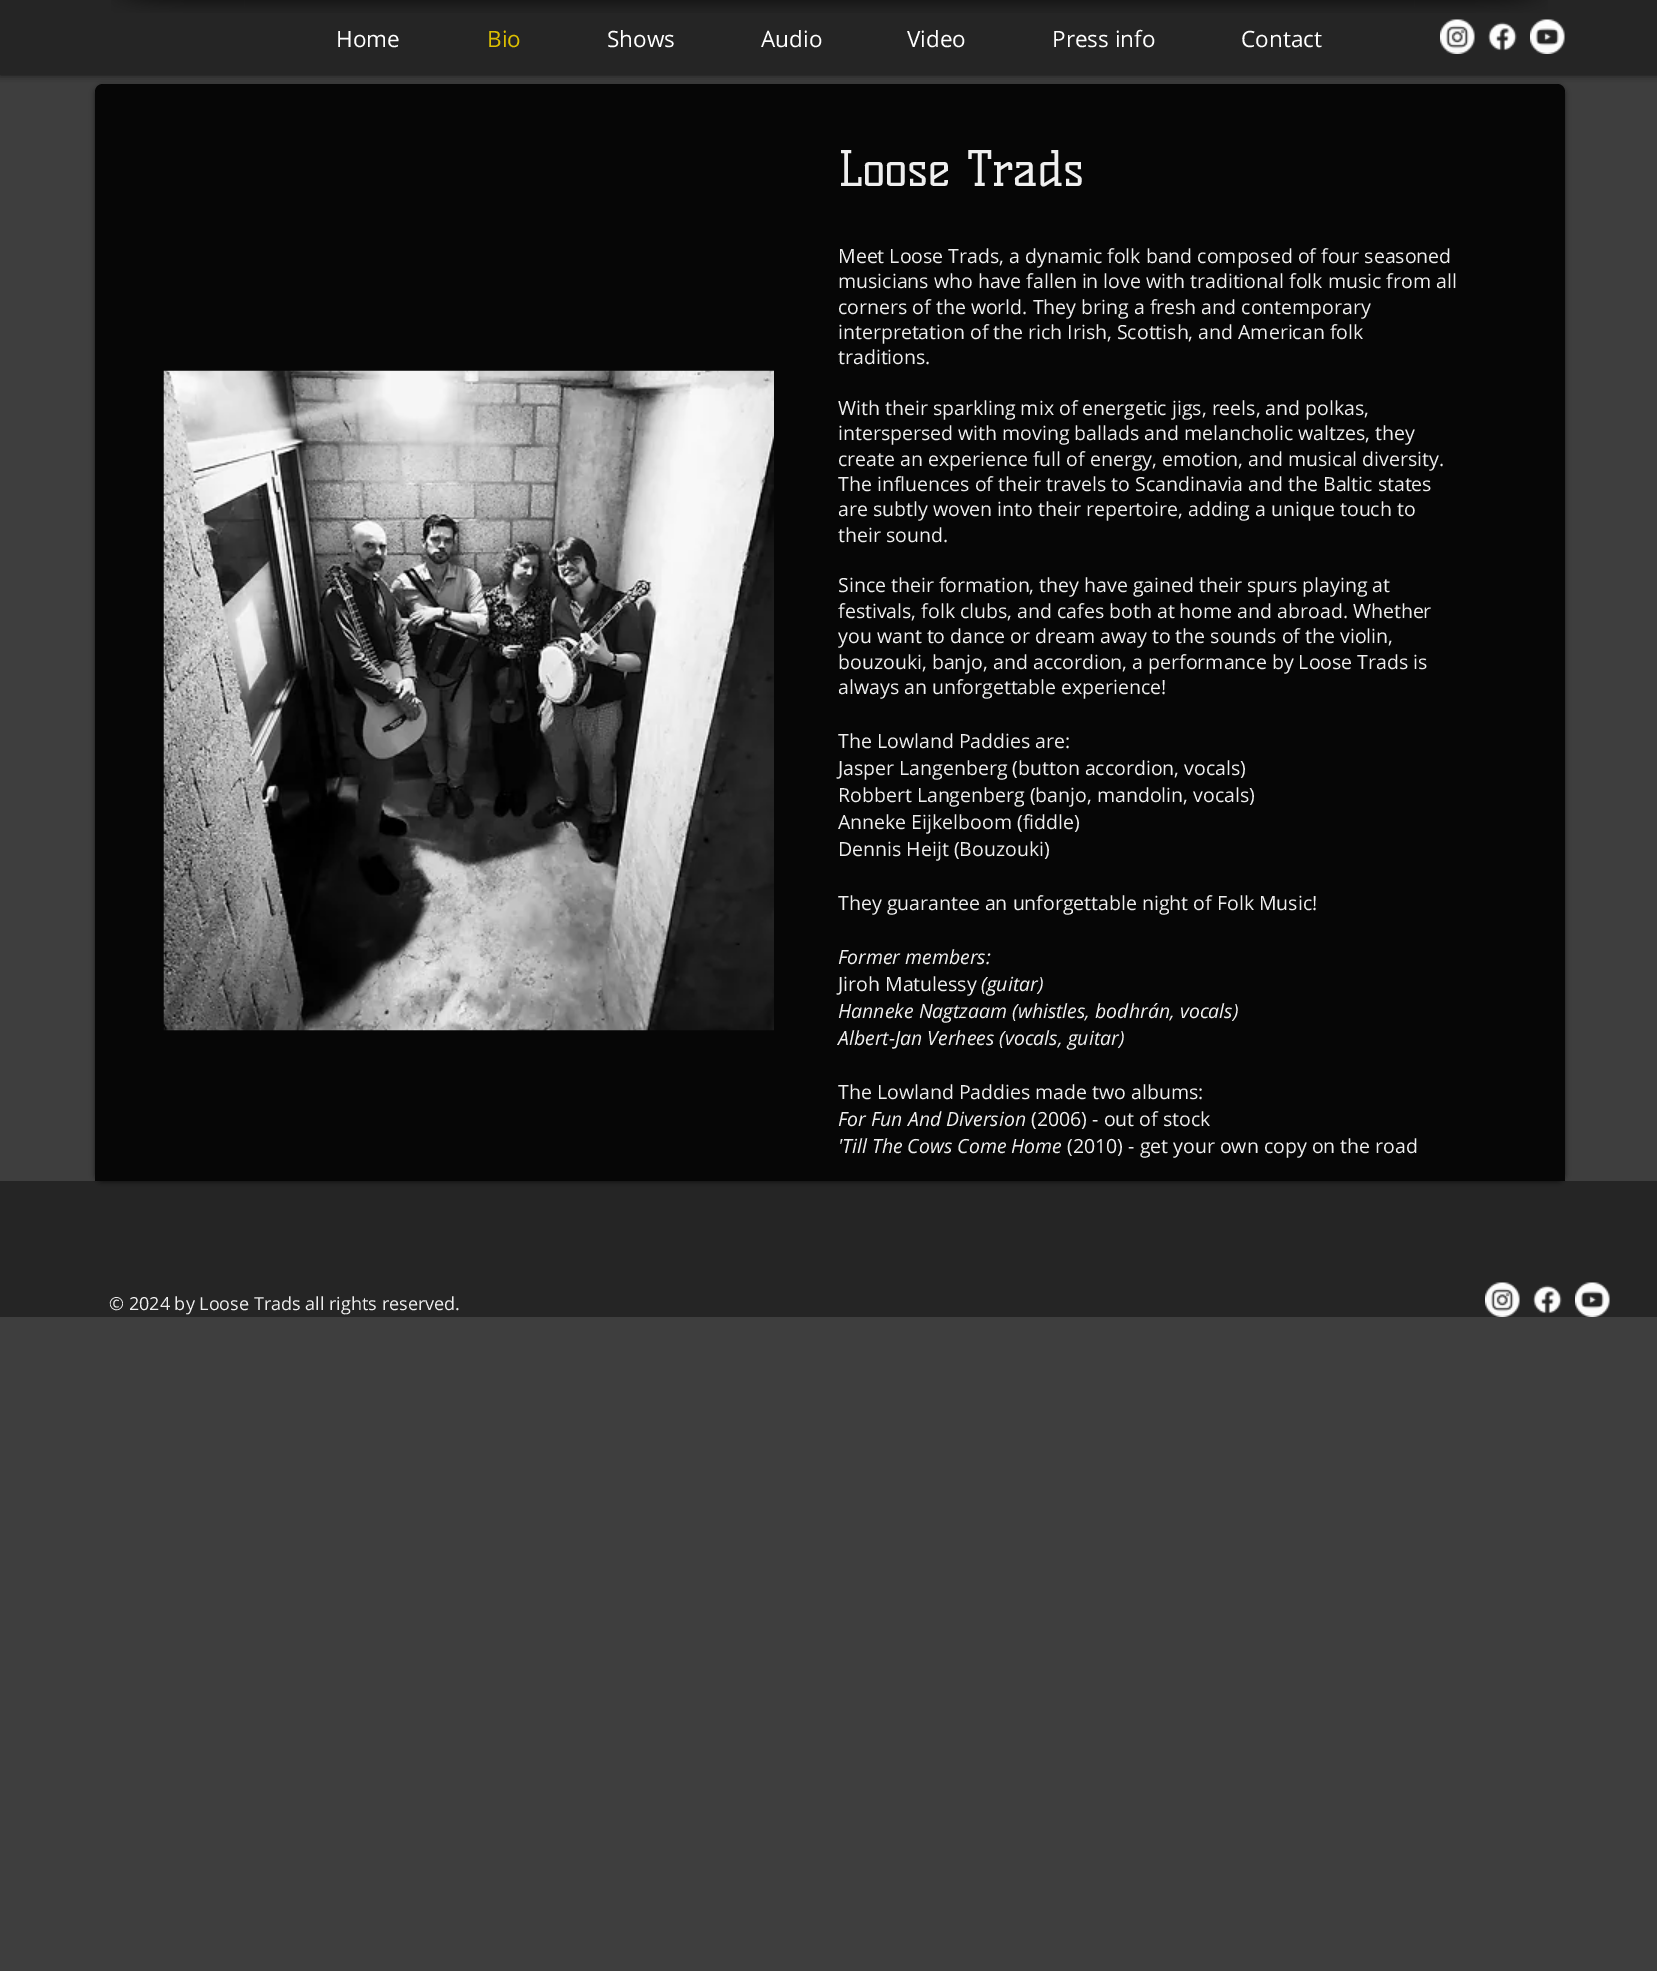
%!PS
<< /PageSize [1657 1971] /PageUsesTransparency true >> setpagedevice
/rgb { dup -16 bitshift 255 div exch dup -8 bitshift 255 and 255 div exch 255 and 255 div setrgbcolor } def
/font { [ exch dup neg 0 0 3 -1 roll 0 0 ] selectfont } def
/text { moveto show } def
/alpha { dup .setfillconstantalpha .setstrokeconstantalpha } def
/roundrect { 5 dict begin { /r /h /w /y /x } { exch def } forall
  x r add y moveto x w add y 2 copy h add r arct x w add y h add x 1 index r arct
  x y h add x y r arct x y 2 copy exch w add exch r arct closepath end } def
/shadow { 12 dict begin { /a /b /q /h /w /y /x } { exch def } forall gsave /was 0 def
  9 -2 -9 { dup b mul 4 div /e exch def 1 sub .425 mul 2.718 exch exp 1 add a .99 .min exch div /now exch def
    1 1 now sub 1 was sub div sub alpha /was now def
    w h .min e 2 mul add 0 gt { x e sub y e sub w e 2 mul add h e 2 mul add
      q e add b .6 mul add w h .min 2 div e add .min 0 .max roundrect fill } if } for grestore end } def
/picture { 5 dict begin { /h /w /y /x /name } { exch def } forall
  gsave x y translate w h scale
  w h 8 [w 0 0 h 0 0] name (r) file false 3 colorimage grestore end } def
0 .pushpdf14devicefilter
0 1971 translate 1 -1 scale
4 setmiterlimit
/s1 { /OpenSans-Regular 22.5 font 16#FFFFFF rgb } def
/s2 { /OpenSans-Regular 22.5 font 16#DDC000 rgb } def
/s3 { /KellySlab-Regular 48 font 16#EFEFEF rgb } def
/s4 { /OpenSans-Regular 19.5 font 16#EFEFEF rgb } def
/s5 { /OpenSans-Italic 19.5 font 16#EFEFEF rgb } def
/s6 { /OpenSans-Regular 18 font 16#EFEFEF rgb } def
16#3E3E3E rgb
0 0 1657 1971 rectfill
16#252525 rgb
0 0 1657 75 rectfill
(pic1.raw) 111 0 134 13 picture
(pic2.raw) 244 0 1171 13 picture
(pic3.raw) 1414 0 134 13 picture
gsave
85 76 moveto 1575 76 lineto 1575 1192 lineto 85 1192 lineto closepath 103 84 moveto 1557 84 lineto 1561.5 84 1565 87.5 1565 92 curveto 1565 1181 lineto 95 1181 lineto 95 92 lineto 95 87.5 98.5 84 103 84 curveto closepath eoclip newpath
16#000000 rgb
95 86 1470 1096 8 3 0.6 shadow
grestore
0.9 alpha
16#000000 rgb
103 84 moveto 1557 84 lineto 1561.5 84 1565 87.5 1565 92 curveto 1565 1181 lineto 95 1181 lineto 95 92 lineto 95 87.5 98.5 84 103 84 curveto closepath fill
gsave
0 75 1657 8 rectclip
1 alpha
0 0 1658 75 0 4 0.7 shadow
grestore
1 alpha
s1
(Home) 336 47 text
s2
(Bio) 487 47 text
s1
(Shows) 607 47 text
(Audio) 761 47 text
(Video) 907 47 text
(Press info) 1052 47 text
(Contact) 1241 47 text
(pic4.raw) 1440 19 35 35 picture
(pic5.raw) 1488 22 29 29 picture
(pic6.raw) 1530 19 35 35 picture
s3
(Loose Trads) 838 186 text
(pic7.raw) 163 370 611 661 picture
s4
(Meet Loose Trads, a dynamic folk band composed of four seasoned) 838 263 text
(musicians who have fallen in love with traditional folk music from all) 838 288 text
(corners of the world. They bring a fresh and contemporary) 838 314 text
(interpretation of the rich Irish, Scottish, and American folk) 838 339 text
(traditions.) 838 364 text
(With their sparkling mix of energetic jigs, reels, and polkas,) 838 415 text
(interspersed with moving ballads and melancholic waltzes, they) 838 440 text
(create an experience full of energy, emotion, and musical diversity.) 838 466 text
(The influences of their travels to Scandinavia and the Baltic states) 838 491 text
(are subtly woven into their repertoire, adding a unique touch to) 838 516 text
(their sound.) 838 542 text
(Since their formation, they have gained their spurs playing at) 838 592 text
(festivals, folk clubs, and cafes both at home and abroad. Whether) 838 618 text
(you want to dance or dream away to the sounds of the violin,) 838 643 text
(bouzouki, banjo, and accordion, a performance by Loose Trads is) 838 669 text
(always an unforgettable experience!) 838 694 text
(The Lowland Paddies are:) 838 748 text
(Jasper Langenberg \(button accordion, vocals\)) 838 775 text
(Robbert Langenberg \(banjo, mandolin, vocals\)) 838 802 text
(Anneke Eijkelboom \(fiddle\)) 838 829 text
(Dennis Heijt \(Bouzouki\)) 838 856 text
(They guarantee an unforgettable night of Folk Music!) 838 910 text
s5
(Former members:) 838 964 text
s4
(Jiroh Matulessy) 838 991 text
s5
(\(guitar\)) 981 991 text
(Hanneke Nagtzaam \(whistles, bodhrán, vocals\)) 838 1018 text
(Albert-Jan Verhees \(vocals, guitar\)) 838 1045 text
s4
(The Lowland Paddies made two albums:) 838 1099 text
s5
(For Fun And Diversion) 838 1126 text
s4
(\(2006\) - out of stock) 1031 1126 text
s5
('Till The Cows Come Home) 838 1153 text
s4
(\(2010\) - get your own copy on the road) 1067 1153 text
0.4 alpha
16#000000 rgb
0 1181 1657 136 rectfill
1 alpha
s6
(© 2024 by Loose Trads all rights reserved.) 109 1310 text
(pic8.raw) 1485 1282 35 35 picture
(pic9.raw) 1533 1285 29 29 picture
(pic6.raw) 1575 1282 35 35 picture
.poppdf14devicefilter showpage
